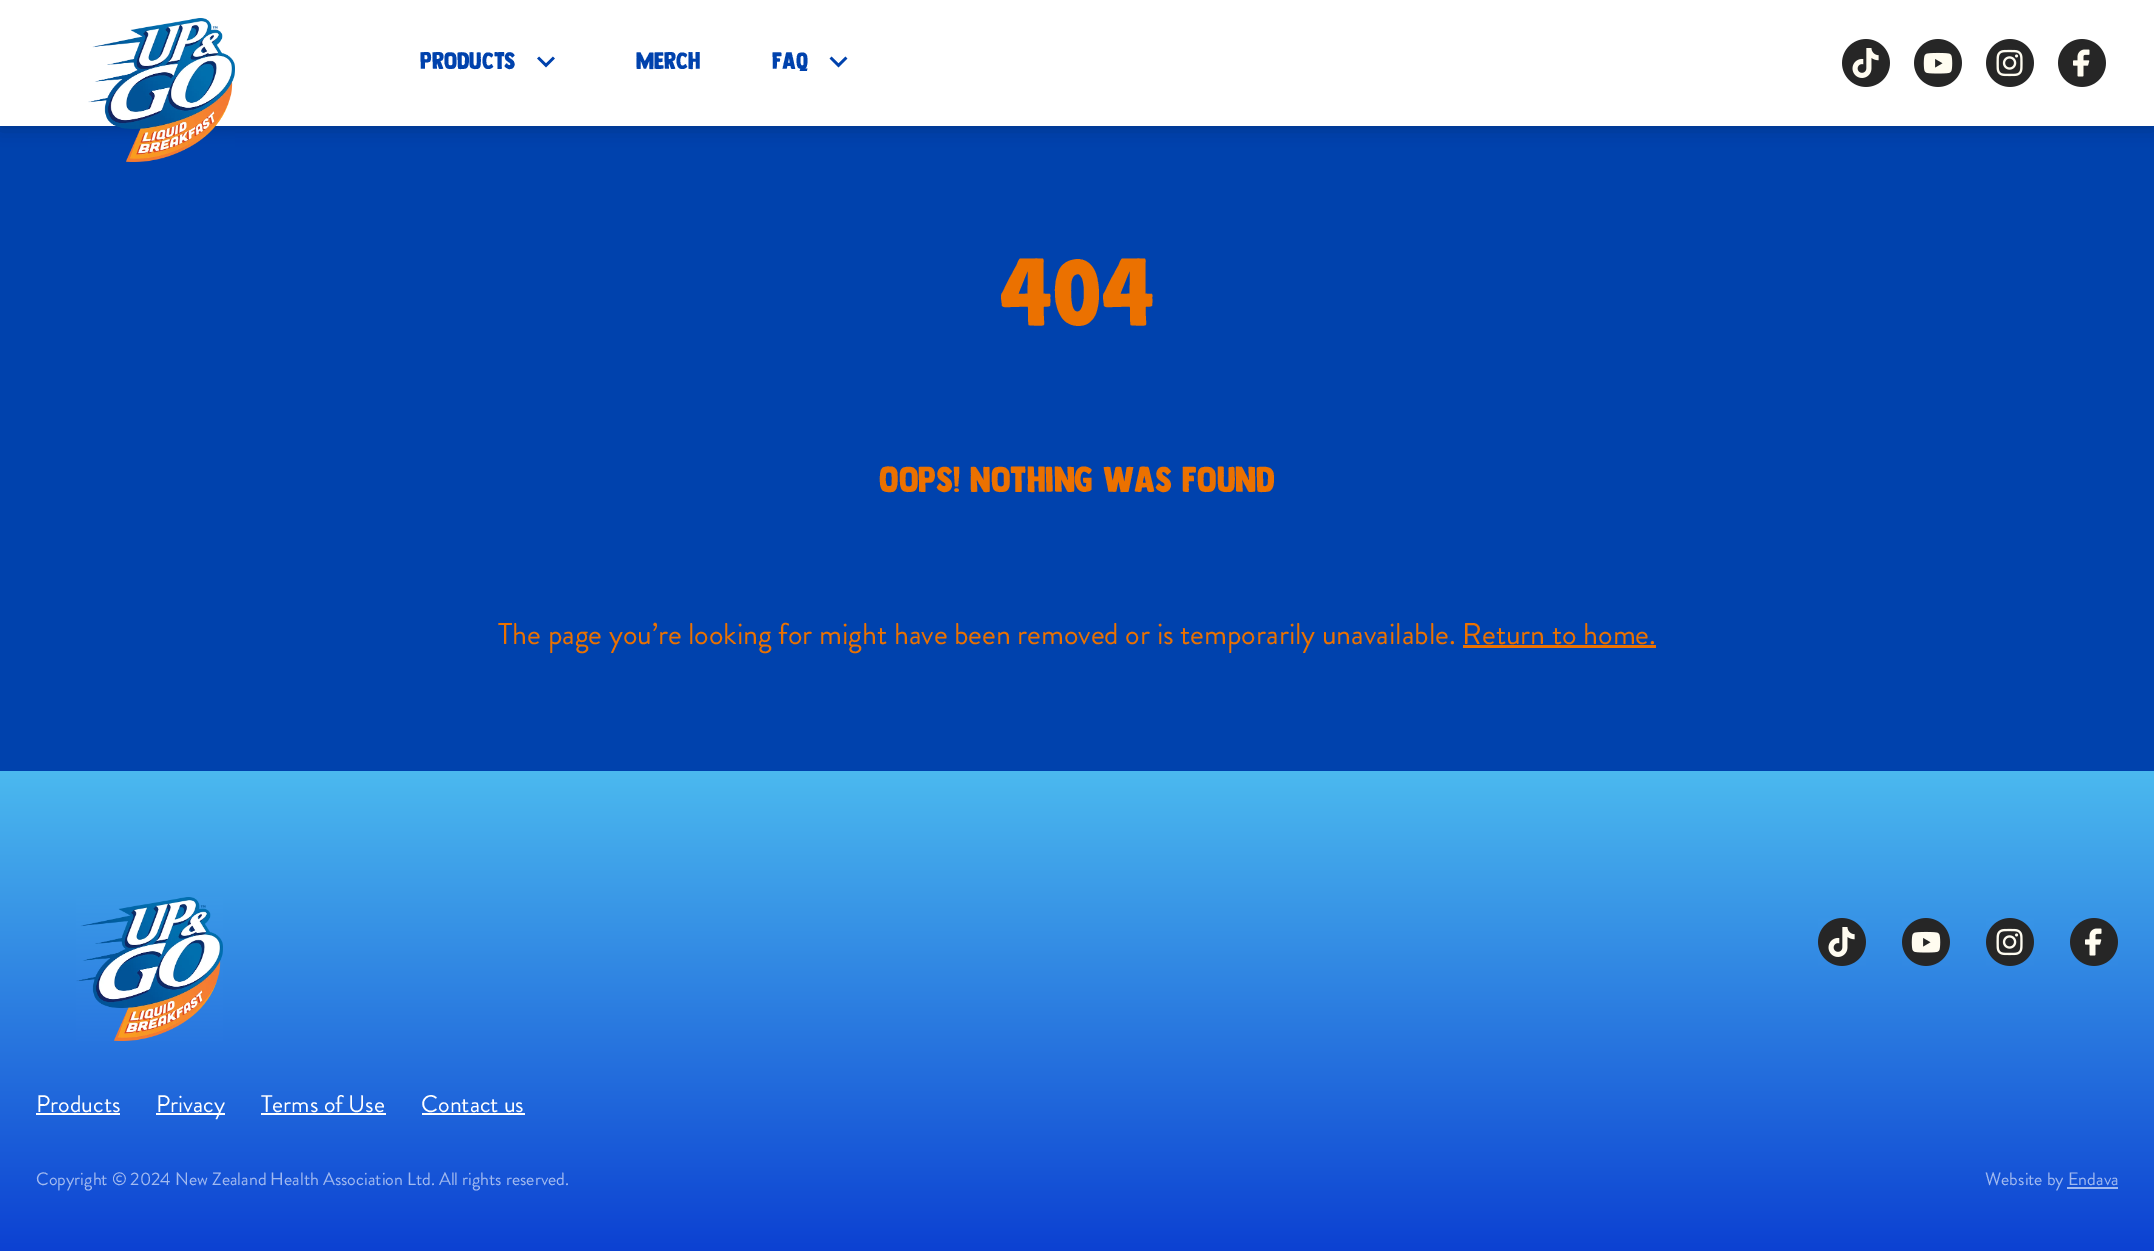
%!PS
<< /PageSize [2154 1251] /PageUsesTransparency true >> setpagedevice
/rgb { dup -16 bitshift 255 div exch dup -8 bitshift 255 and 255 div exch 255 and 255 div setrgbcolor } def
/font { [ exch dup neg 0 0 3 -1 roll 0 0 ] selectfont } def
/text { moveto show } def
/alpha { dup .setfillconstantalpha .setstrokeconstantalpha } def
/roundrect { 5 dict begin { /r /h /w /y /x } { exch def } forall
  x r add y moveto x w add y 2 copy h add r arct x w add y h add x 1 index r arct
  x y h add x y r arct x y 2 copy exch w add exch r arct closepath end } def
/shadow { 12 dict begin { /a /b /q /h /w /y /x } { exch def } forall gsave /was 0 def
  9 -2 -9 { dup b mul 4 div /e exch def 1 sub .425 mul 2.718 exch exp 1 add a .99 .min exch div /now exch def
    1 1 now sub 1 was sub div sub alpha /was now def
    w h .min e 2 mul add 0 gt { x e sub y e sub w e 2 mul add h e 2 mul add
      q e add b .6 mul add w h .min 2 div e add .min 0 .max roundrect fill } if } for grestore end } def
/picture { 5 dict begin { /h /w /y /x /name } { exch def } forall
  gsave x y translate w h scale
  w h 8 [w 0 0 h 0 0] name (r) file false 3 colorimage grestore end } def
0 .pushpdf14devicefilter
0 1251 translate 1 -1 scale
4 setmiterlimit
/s1 { /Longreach-Regular 24 font 16#0042AD rgb } def
/s2 { /Longreach-Regular 96 font 16#EB7100 rgb } def
/s3 { /Longreach-Regular 36 font 16#EB7100 rgb } def
/s4 { /BrandonGrotesque-Regular 30 font 16#EB7100 rgb } def
/s5 { /BrandonGrotesque-Regular 24 font 16#FFFFFF rgb } def
/s6 { /BrandonGrotesque-Regular 18 font 16#A2BAEF rgb } def
16#0042AD rgb
0 0 2154 1251 rectfill
16#000000 rgb
0 0 2154 126 0 9.5 0.25 shadow
16#FFFFFF rgb
0 0 2154 126 rectfill
(pic1.raw) 88 18 147 144 picture
s1
(Products) 420 69 text
(pic2.raw) 537 56 18 12 picture
(Merch) 636 69 text
(FAQ) 772 69 text
(pic3.raw) 829 56 19 12 picture
(pic4.raw) 1842 39 48 48 picture
(pic5.raw) 1914 39 48 48 picture
(pic6.raw) 1986 39 48 48 picture
(pic7.raw) 2058 39 48 48 picture
s2
(404) 999 326 text
s3
(Oops! Nothing was found) 879 492 text
s4
(The page you’re looking for might have been removed or is temporarily unavailable. Return to home.) 498 644 text
1463 645 193 3 rectfill
gsave 0 771 moveto 2154 771 lineto 2154 1251 lineto 0 1251 lineto closepath clip newpath
<< /ShadingType 2 /ColorSpace /DeviceRGB /Coords [1077 771 1077 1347] /Extend [true true] /Function << /FunctionType 2 /Domain [0 1] /C0 [0.294 0.725 0.937] /C1 [0 0.161 0.8] /N 1 >> >> shfill grestore
(pic8.raw) 76 897 147 144 picture
(pic9.raw) 1818 918 48 48 picture
(pic10.raw) 1902 918 48 48 picture
(pic11.raw) 1986 918 48 48 picture
(pic12.raw) 2070 918 48 48 picture
s5
(Products) 36 1112 text
36 1113 84 2 rectfill
156 1113 69 2 rectfill
(Privacy) 156 1112 text
(Terms of Use) 261 1112 text
261 1113 125 2 rectfill
(Contact us) 421 1112 text
422 1113 103 2 rectfill
s6
(Copyright © 2024 New Zealand Health Association Ltd. All rights reserved.) 36 1185 text
(Website by Endava) 1985 1185 text
16#A1B9EF rgb
2067 1187 51 2 rectfill
.poppdf14devicefilter showpage
